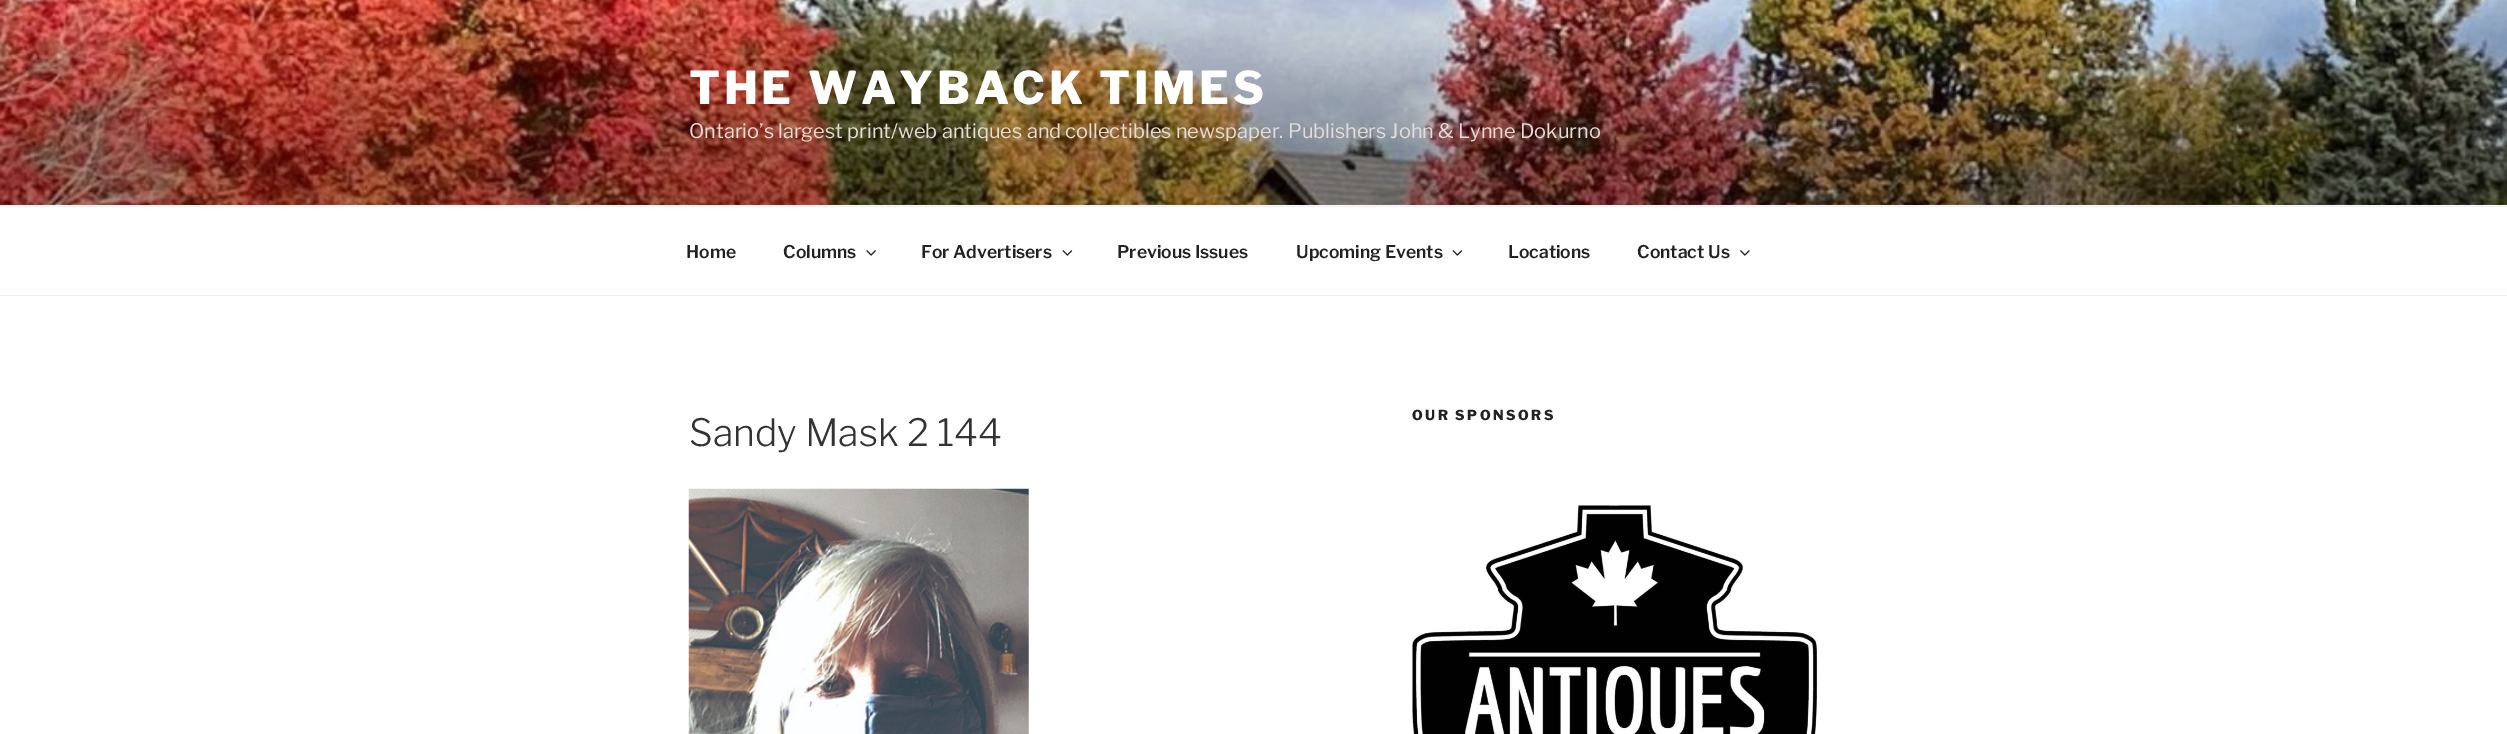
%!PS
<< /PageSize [2507 734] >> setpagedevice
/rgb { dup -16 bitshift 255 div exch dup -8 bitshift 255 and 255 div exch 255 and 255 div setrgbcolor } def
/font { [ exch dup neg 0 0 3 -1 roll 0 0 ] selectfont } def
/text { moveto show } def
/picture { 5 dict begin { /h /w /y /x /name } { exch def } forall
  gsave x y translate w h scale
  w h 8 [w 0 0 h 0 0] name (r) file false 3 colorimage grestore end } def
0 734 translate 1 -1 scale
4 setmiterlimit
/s1 { /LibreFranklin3-Thin 20 font 16#E3DDD9 rgb } def
/s2 { /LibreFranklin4-Thin 17.5 font 16#222222 rgb } def
/s3 { /LibreFranklin-Thin 37.5 font 16#333333 rgb } def
16#FFFFFF rgb
0 0 2507 734 rectfill
16#FAFAFA rgb
0 205 2507 1 rectfill
(pic1.raw) 0 0 2507 205 picture
/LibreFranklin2-Thin 45 font
16#FFFFFF rgb
689 104 moveto 3.6 0 (THE WAYBACK TIMES) ashow
s1
(Ontario’s largest print/web antiques and collectibles newspaper. Publishers John & Lynne Dokurno) 689 138 text
16#EEEEEE rgb
0 206 2507 1 rectfill
0 295 2507 1 rectfill
s2
(Home) 686 258 text
(Columns) 783 258 text
(pic2.raw) 866 250 10 6 picture
(For Advertisers) 921 258 text
(pic3.raw) 1062 250 11 6 picture
(Previous Issues) 1117 258 text
(Upcoming Events) 1296 258 text
(pic3.raw) 1452 250 11 6 picture
(Locations) 1508 258 text
(Contact Us) 1637 258 text
(pic4.raw) 1740 250 10 6 picture
/LibreFranklin2-Thin 13.75 font
1412 420 moveto 2.5 0 (OUR SPONSORS) ashow
(pic5.raw) 1412 505 406 229 picture
s3
(Sandy Mask 2 144) 689 446 text
(pic6.raw) 688 488 341 246 picture
showpage
